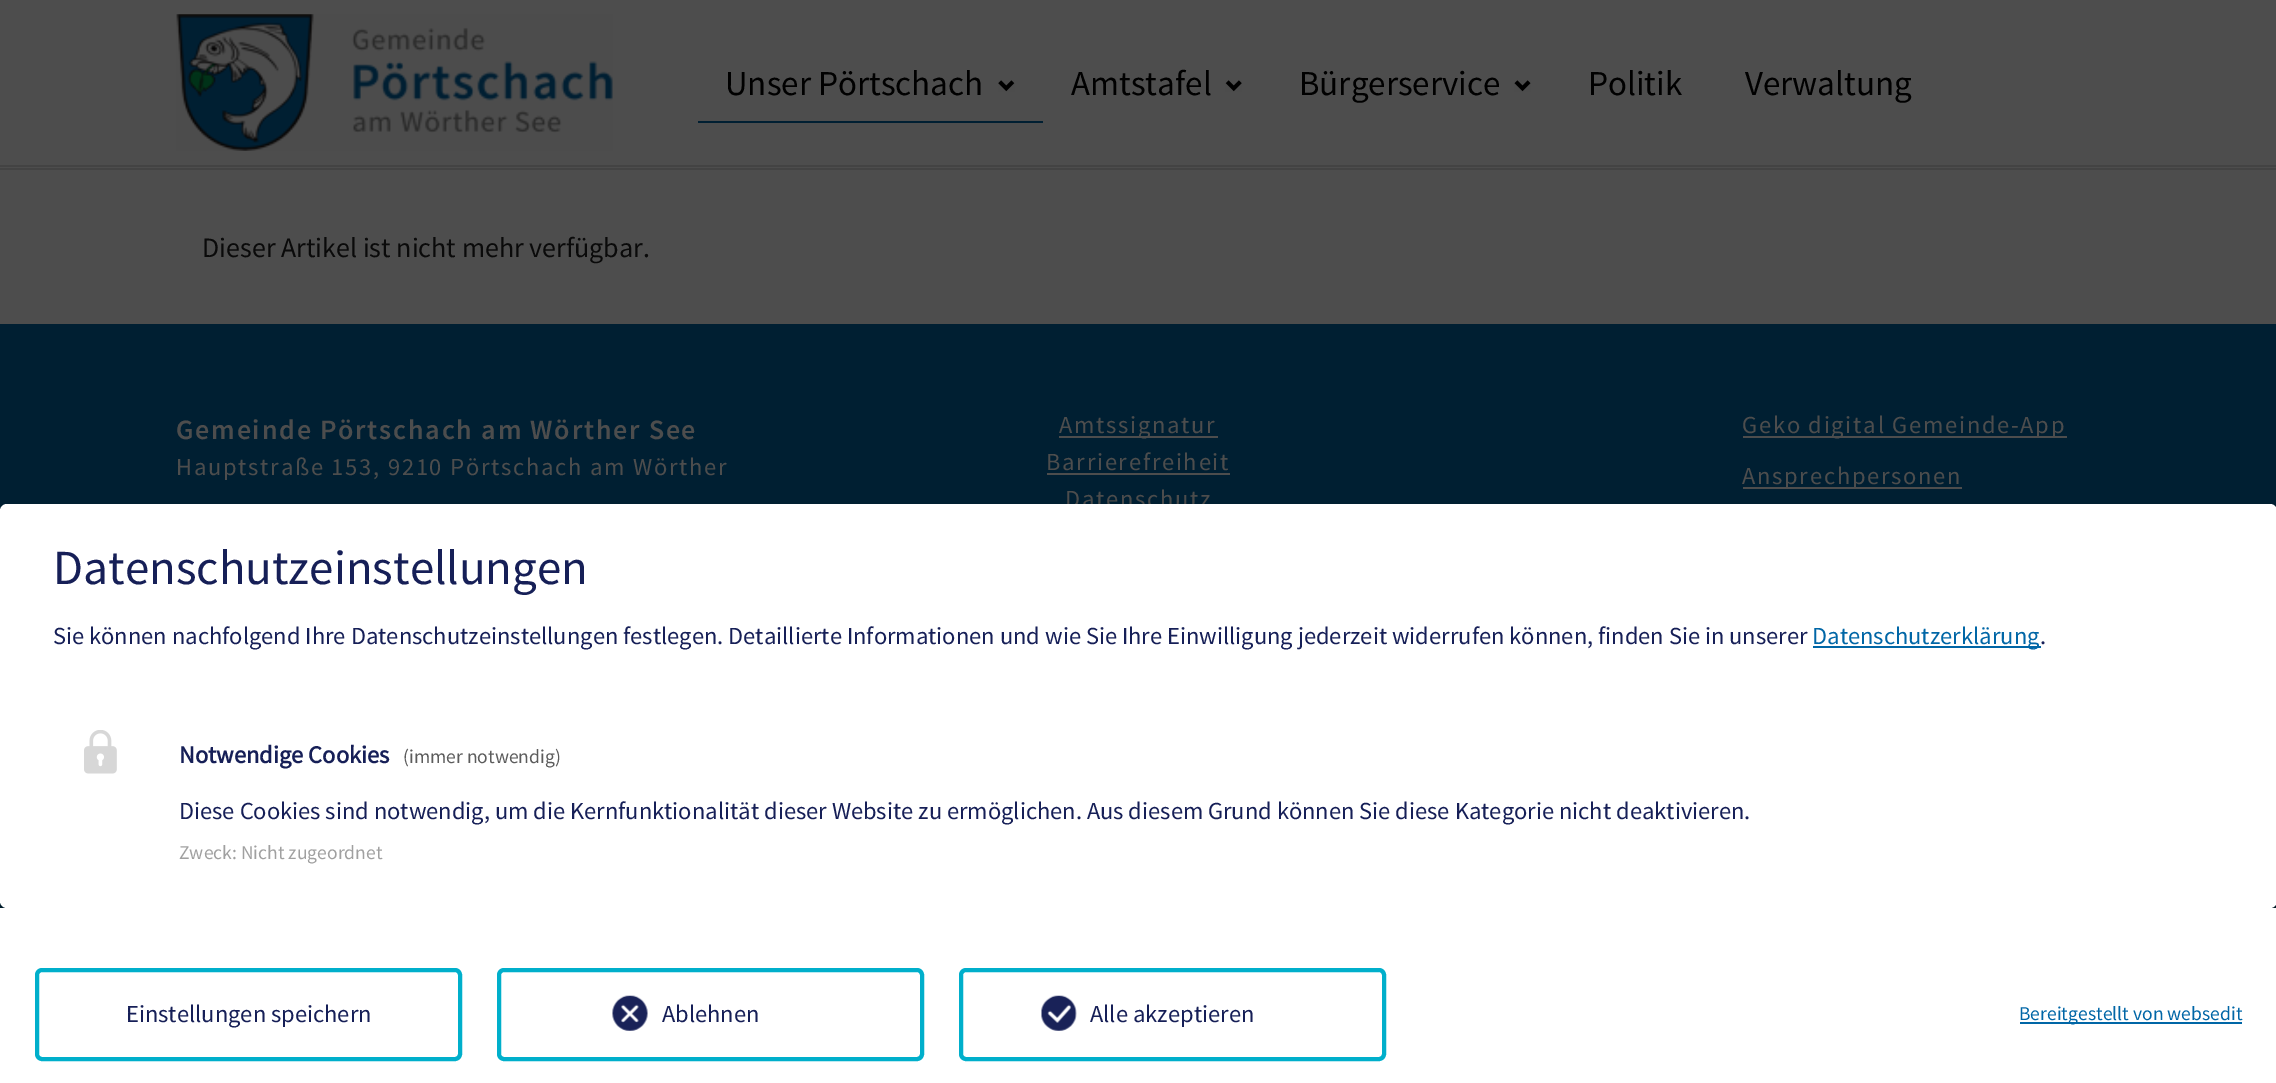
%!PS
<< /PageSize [2276 1083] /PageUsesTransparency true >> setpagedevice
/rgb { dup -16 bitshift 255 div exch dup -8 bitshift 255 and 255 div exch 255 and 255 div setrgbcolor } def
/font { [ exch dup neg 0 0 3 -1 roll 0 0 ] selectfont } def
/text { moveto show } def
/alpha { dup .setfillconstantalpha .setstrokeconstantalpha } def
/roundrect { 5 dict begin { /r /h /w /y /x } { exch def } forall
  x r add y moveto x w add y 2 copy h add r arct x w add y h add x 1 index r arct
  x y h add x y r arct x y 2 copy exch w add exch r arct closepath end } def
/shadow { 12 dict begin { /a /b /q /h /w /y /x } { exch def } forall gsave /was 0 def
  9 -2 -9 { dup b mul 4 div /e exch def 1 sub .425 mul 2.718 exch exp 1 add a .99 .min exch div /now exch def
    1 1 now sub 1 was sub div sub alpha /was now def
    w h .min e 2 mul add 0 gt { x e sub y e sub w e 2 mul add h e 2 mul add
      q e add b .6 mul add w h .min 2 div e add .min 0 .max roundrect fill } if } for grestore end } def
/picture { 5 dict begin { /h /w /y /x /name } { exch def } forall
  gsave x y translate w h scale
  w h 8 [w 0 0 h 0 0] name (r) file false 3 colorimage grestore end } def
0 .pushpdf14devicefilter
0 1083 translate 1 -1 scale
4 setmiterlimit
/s1 { /SourceSansPro-Regular 35 font 16#000000 rgb } def
/s2 { /SourceSansPro-Regular 28 font 16#0A0A0A rgb } def
/s3 { /SourceSansPro-Regular 49 font 16#161F57 rgb } def
/s4 { /SourceSansPro-Regular 24.5 font 16#161F57 rgb } def
/s5 { /SourceSansPro-Regular 24.5 font 16#0066A6 rgb } def
/s6 { /SourceSansPro-Bold 24.5 font 16#161F57 rgb } def
/s7 { /SourceSansPro-Regular 19.6 font 16#5C5C5C rgb } def
/s8 { /SourceSansPro-Regular 19.6 font 16#A0A0A0 rgb } def
/s9 { /SourceSansPro-Regular 19.6 font 16#0066A6 rgb } def
16#4D4D4D rgb
0 0 2276 1083 rectfill
16#434343 rgb
0 165 2276 2 rectfill
(pic1.raw) 176 14 437 137 picture
s1
(Unser Pörtschach) 725 95 text
(pic2.raw) 998 80 17 12 picture
(Amtstafel) 1071 95 text
(pic3.raw) 1225 80 17 12 picture
(Bürgerservice) 1299 95 text
(pic4.raw) 1514 80 17 12 picture
(Politik) 1588 95 text
(Verwaltung) 1745 95 text
16#001F32 rgb
698 121 345 2 rectfill
16#434343 rgb
0 168 2276 2 rectfill
s2
(Dieser Artikel ist nicht mehr verfügbar.) 202 257 text
16#001F32 rgb
0 324 2276 584 rectfill
/SourceSansPro-SemiBold 28 font
16#4D4D4D rgb
176 439 moveto 1.75 0 (Gemeinde Pörtschach am Wörther See) ashow
/SourceSansPro-Regular 24.5 font
176 475 moveto 1.75 0 (Hauptstraße 153, 9210 Pörtschach am Wörther) ashow
1059 436 159 2 rectfill
1059 433 moveto 1.75 0 (Amtssignatur) ashow
1046 470 moveto 1.75 0 (Barrierefreiheit) ashow
1047 473 183 2 rectfill
1065 507 moveto 1.75 0 (Datenschutz) ashow
1743 436 324 2 rectfill
1742 433 moveto 1.75 0 (Geko digital Gemeinde-App) ashow
1743 487 219 2 rectfill
1742 484 moveto 1.75 0 (Ansprechpersonen) ashow
16#000000 rgb
9 513 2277 404 7 9 0.19 shadow
0 511 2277 404 7 5 0.2 shadow
16#FFFFFF rgb
0 504 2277 404 7 roundrect fill
s3
(Datenschutzeinstellungen) 53 584 text
s4
(Sie können nachfolgend Ihre Datenschutzeinstellungen festlegen. Detaillierte Informationen und wie Sie Ihre Einwilligung jederzeit widerrufen können, finden Sie in unserer) 53 644 text
16#0066A6 rgb
1813 646 228 2 rectfill
(Datenschutzerklärung) 1812 644 text
s4
(.) 2040 644 text
(pic5.raw) 84 730 33 44 picture
s6
(Notwendige Cookies) 179 763 text
s7
(\(immer notwendig\)) 403 763 text
s4
(Diese Cookies sind notwendig, um die Kernfunktionalität dieser Website zu ermöglichen. Aus diesem Grund können Sie diese Kategorie nicht deaktivieren.) 179 819 text
s8
(Zweck: Nicht zugeordnet) 179 859 text
16#FFFFFF rgb
0 908 2276 175 rectfill
16#00AFCB rgb
4 setlinewidth
37 970 423 89 5 roundrect stroke
s4
(Einstellungen speichern) 126 1022 text
16#00AFCB rgb
499 970 423 89 5 roundrect stroke
(pic6.raw) 612 995 36 36 picture
s4
(Ablehnen) 662 1022 text
16#00AFCB rgb
961 970 423 89 5 roundrect stroke
(pic7.raw) 1041 995 36 36 picture
s4
(Alle akzeptieren) 1090 1022 text
16#0066A6 rgb
2020 1022 222 2 rectfill
s9
(Bereitgestellt von websedit) 2019 1020 text
.poppdf14devicefilter showpage
